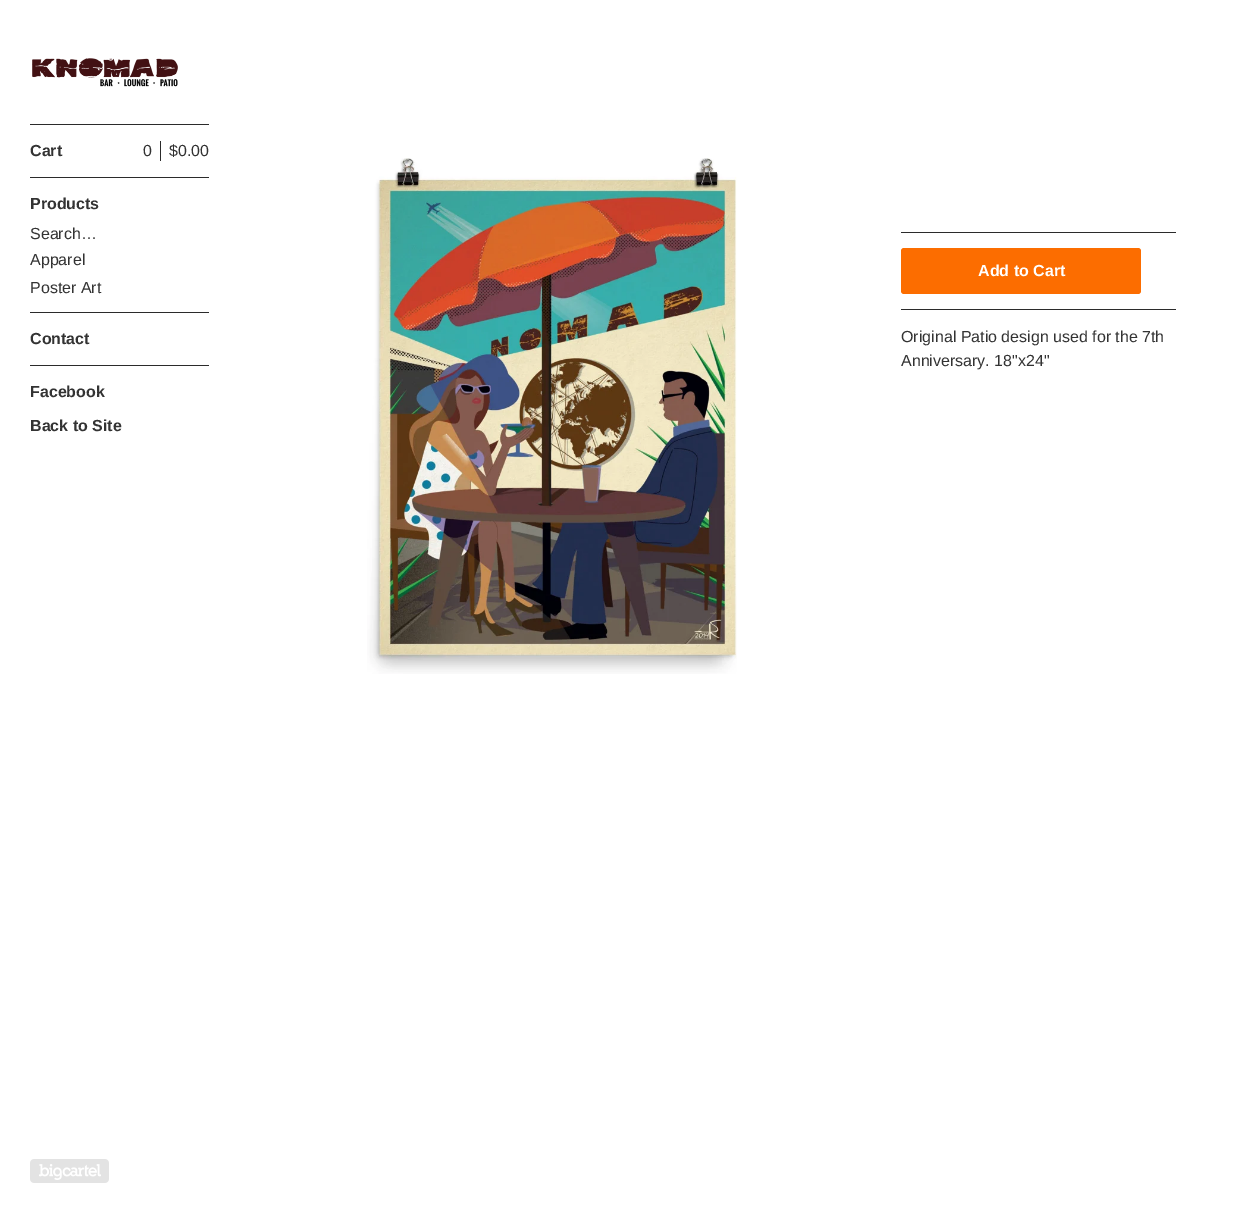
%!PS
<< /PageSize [1236 1213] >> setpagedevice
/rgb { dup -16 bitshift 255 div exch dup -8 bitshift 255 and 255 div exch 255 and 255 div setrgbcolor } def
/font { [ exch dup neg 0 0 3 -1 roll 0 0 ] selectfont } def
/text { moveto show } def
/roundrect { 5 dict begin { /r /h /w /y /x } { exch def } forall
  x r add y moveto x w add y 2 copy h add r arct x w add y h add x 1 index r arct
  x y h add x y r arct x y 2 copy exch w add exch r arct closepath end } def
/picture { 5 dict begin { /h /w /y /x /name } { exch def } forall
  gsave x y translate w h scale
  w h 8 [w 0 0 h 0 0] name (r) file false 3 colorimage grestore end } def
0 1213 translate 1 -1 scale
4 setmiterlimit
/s1 { /LiberationSans-Bold 16 font 16#333333 rgb } def
/s2 { /LiberationSans-Regular 16 font 16#333333 rgb } def
/s3 { /LiberationSans-Bold 16 font 16#FFFFFF rgb } def
16#FFFFFF rgb
0 0 1236 1213 rectfill
(pic1.raw) 32 58 146 29 picture
16#2B2B2B rgb
30 124 179 1 rectfill
s1
(Cart) 30 156 text
s2
(0) 143 156 text
16#2B2B2B rgb
160 141 1 20 rectfill
s2
($0.00) 169 156 text
16#2B2B2B rgb
30 177 179 1 rectfill
s1
(Products) 30 209 text
s2
(Search…) 30 239 text
(Apparel) 30 265 text
(Poster Art) 30 293 text
16#2B2B2B rgb
30 312 179 1 rectfill
s1
(Contact) 30 344 text
16#2B2B2B rgb
30 365 179 1 rectfill
s1
(Facebook) 30 397 text
(Back to Site) 30 431 text
(pic2.raw) 30 1159 79 24 picture
(pic3.raw) 367 158 370 516 picture
16#2B2B2B rgb
901 232 275 1 rectfill
16#FC6D00 rgb
901 248 240 46 3 roundrect fill
s3
(Add to Cart) 978 276 text
16#2B2B2B rgb
901 309 275 1 rectfill
s2
(Original Patio design used for the 7th) 901 342 text
(Anniversary. 18"x24") 901 366 text
showpage
